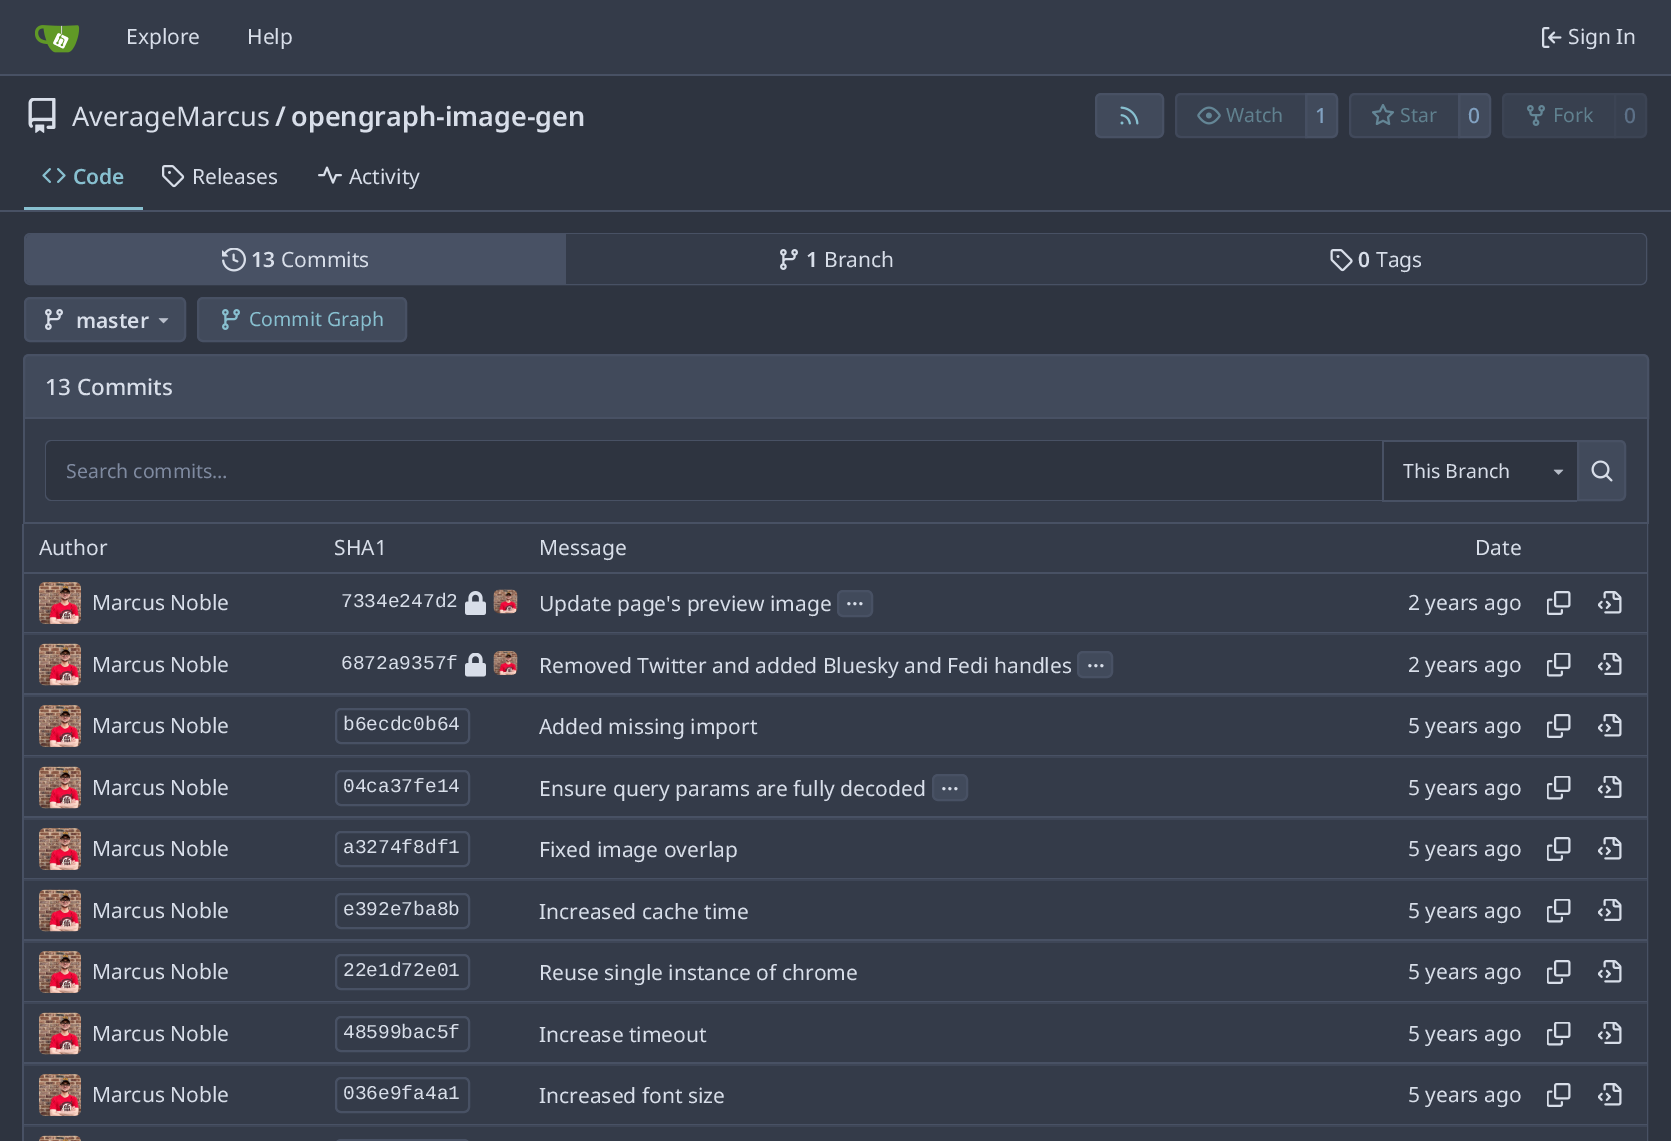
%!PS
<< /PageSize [1671 1141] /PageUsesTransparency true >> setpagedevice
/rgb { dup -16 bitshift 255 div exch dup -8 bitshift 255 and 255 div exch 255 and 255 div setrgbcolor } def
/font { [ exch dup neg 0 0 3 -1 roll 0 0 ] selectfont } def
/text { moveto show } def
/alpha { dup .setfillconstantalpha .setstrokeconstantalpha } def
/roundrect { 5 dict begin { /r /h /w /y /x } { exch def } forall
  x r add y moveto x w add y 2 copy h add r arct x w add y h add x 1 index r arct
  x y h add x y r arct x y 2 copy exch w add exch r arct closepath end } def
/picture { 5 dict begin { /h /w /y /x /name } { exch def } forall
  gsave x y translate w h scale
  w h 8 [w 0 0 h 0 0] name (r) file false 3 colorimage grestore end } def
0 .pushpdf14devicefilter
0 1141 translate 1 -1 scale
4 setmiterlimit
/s1 { /NotoSans-Regular 21 font 16#D8DEE9 rgb } def
/s2 { /NotoSans-Regular 27 font 16#D8DEE9 rgb } def
/s3 { /NotoSans-SemiBold 27 font 16#D8DEE9 rgb } def
/s4 { /NotoSans-Regular 19.5 font 16#60818F rgb } def
/s5 { /NotoSans-Medium 21 font 16#81A1C1 rgb } def
/s6 { /NotoSans-Medium 21 font 16#5C7087 rgb } def
/s7 { /NotoSans-SemiBold 21 font 16#88C0D0 rgb } def
/s8 { /NotoSans-SemiBold 21 font 16#D8DEE9 rgb } def
/s9 { /NotoSans-Regular 19.5 font 16#88C0D0 rgb } def
/s10 { /NotoSans-Medium 22.5 font 16#D8DEE9 rgb } def
/s11 { /NotoSans-Regular 19.5 font 16#7F8AA0 rgb } def
/s12 { /NotoSans-Regular 19.5 font 16#D8DEE9 rgb } def
/s13 { /LiberationMono-Regular 19.5 font 16#D8DEE9 rgb } def
16#2E3440 rgb
0 0 1671 1141 rectfill
16#343B49 rgb
0 0 1671 74 rectfill
16#485164 rgb
0 74 1671 2 rectfill
(pic1.raw) 35 25 45 28 picture
s1
(Explore) 126 44 text
(Help) 247 44 text
(pic2.raw) 1542 27 20 21 picture
(Sign In) 1568 44 text
(pic3.raw) 28 98 28 35 picture
s2
(AverageMarcus) 72 126 text
s3
(/) 275 126 text
(opengraph-image-gen) 291 126 text
16#414A5B rgb
1096 94 67 43 5 roundrect gsave fill grestore
16#485164 rgb
2 setlinewidth
stroke
(pic4.raw) 1120 106 19 19 picture
16#414A5B rgb
1306 94 moveto 1332 94 lineto 1335 94 1337 96 1337 99 curveto 1337 132 lineto 1337 135 1335 137 1332 137 curveto 1306 137 lineto closepath gsave fill grestore
16#485164 rgb
stroke
0.55 alpha
16#414A5B rgb
1181 93 moveto 1307 93 lineto 1307 138 lineto 1181 138 lineto 1177.5 138 1175 135.5 1175 132 curveto 1175 99 lineto 1175 95.5 1177.5 93 1181 93 curveto closepath fill
16#485164 rgb
1181 94 moveto 1306 94 lineto 1306 137 lineto 1181 137 lineto 1178 137 1176 135 1176 132 curveto 1176 99 lineto 1176 96 1178 94 1181 94 curveto closepath stroke
1 alpha
(pic5.raw) 1197 106 24 19 picture
s4
(Watch) 1226 122 text
s5
(1) 1315 123 text
16#414A5B rgb
1459 94 moveto 1485 94 lineto 1488 94 1490 96 1490 99 curveto 1490 132 lineto 1490 135 1488 137 1485 137 curveto 1459 137 lineto closepath gsave fill grestore
16#485164 rgb
stroke
0.55 alpha
16#414A5B rgb
1355 93 moveto 1460 93 lineto 1460 138 lineto 1355 138 lineto 1351.5 138 1349 135.5 1349 132 curveto 1349 99 lineto 1349 95.5 1351.5 93 1355 93 curveto closepath fill
16#485164 rgb
1355 94 moveto 1459 94 lineto 1459 137 lineto 1355 137 lineto 1352 137 1350 135 1350 132 curveto 1350 99 lineto 1350 96 1352 94 1355 94 curveto closepath stroke
1 alpha
(pic6.raw) 1372 104 22 21 picture
s4
(Star) 1400 122 text
s5
(0) 1468 123 text
16#38404F rgb
1508 94 moveto 1615 94 lineto 1615 137 lineto 1508 137 lineto 1505 137 1503 135 1503 132 curveto 1503 99 lineto 1503 96 1505 94 1508 94 curveto closepath gsave fill grestore
16#3C4454 rgb
stroke
(pic7.raw) 1527 105 18 21 picture
s4
(Fork) 1553 122 text
16#38404F rgb
1615 94 moveto 1641 94 lineto 1644 94 1646 96 1646 99 curveto 1646 132 lineto 1646 135 1644 137 1641 137 curveto 1615 137 lineto closepath gsave fill grestore
16#3C4454 rgb
stroke
s6
(0) 1624 123 text
16#88C0D0 rgb
24 207 119 3 rectfill
(pic8.raw) 42 168 24 15 picture
s7
(Code) 73 184 text
(pic9.raw) 162 165 23 23 picture
s1
(Releases) 192 184 text
(pic10.raw) 318 166 24 18 picture
(Activity) 349 184 text
16#485164 rgb
0 210 1671 2 rectfill
25 234 1621 50 5 roundrect stroke
16#343B49 rgb
26 234 1620 50 6 roundrect fill
16#485164 rgb
32 234 moveto 566 234 lineto 566 284 lineto 32 284 lineto 28.5 284 26 281.5 26 278 curveto 26 240 lineto 26 236.5 28.5 234 32 234 curveto closepath fill
(pic11.raw) 222 248 24 24 picture
s8
(13) 251 267 text
s1
(Commits) 281 267 text
(pic12.raw) 780 249 18 21 picture
s8
(1) 806 267 text
s1
(Branch) 824 267 text
(pic13.raw) 1330 249 23 23 picture
s8
(0) 1358 267 text
s1
(Tags) 1376 267 text
16#414A5B rgb
25 298 160 43 5 roundrect gsave fill grestore
16#485164 rgb
stroke
(pic14.raw) 45 309 18 21 picture
s8
(master) 76 328 text
(pic15.raw) 158 318 11 6 picture
16#414A5B rgb
198 298 208 43 5 roundrect gsave fill grestore
16#485164 rgb
stroke
(pic16.raw) 222 309 18 21 picture
s9
(Commit Graph) 249 326 text
16#414A5B rgb
29 355 moveto 1643 355 lineto 1646 355 1648 357 1648 360 curveto 1648 418 lineto 24 418 lineto 24 360 lineto 24 357 26 355 29 355 curveto closepath gsave fill grestore
16#485164 rgb
stroke
s10
(13 Commits) 45 395 text
16#343B49 rgb
25 419 1622 103 rectfill
16#485164 rgb
1647 419 2 105 rectfill
23 522 1626 2 rectfill
23 419 2 105 rectfill
16#2E3440 rgb
51 440 moveto 1382 440 lineto 1382 501 lineto 51 501 lineto 47.5 501 45 498.5 45 495 curveto 45 446 lineto 45 442.5 47.5 440 51 440 curveto closepath fill
16#485164 rgb
51 440 moveto 1382 440 lineto 1382 501 lineto 51 501 lineto 48 501 45 498 45 495 curveto 45 446 lineto 45 442 48 440 51 440 curveto closepath 51 441 moveto 1382 441 lineto 1382 500 lineto 51 500 lineto 49 500 46 497 46 495 curveto 46 446 lineto 46 443 49 441 51 441 curveto closepath eofill
s11
(Search commits…) 66 478 text
16#2E3440 rgb
1384 442 193 58 rectfill
16#485164 rgb
1382 440 195 2 rectfill
1382 500 195 2 rectfill
1382 440 2 61 rectfill
s12
(This Branch) 1403 478 text
(pic17.raw) 1553 469 11 6 picture
16#414A5B rgb
1578 441 moveto 1620 441 lineto 1623 441 1625 443 1625 446 curveto 1625 495 lineto 1625 498 1623 500 1620 500 curveto 1578 500 lineto closepath gsave fill grestore
16#485164 rgb
stroke
(pic18.raw) 1591 460 22 22 picture
16#343B49 rgb
24 524 1625 617 rectfill
16#485164 rgb
22 524 moveto 1648 524 lineto 1648 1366 lineto 1648 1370 1646 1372 1642 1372 curveto 28 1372 lineto 25 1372 22 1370 22 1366 curveto closepath 24 524 moveto 1647 524 lineto 1647 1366 lineto 1647 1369 1645 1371 1642 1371 curveto 28 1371 lineto 26 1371 24 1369 24 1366 curveto closepath eofill
24 572 1623 2 rectfill
s1
(Author) 39 555 text
(SHA1) 334 555 text
(Message) 539 555 text
(Date) 1475 555 text
16#485164 rgb
24 632 1623 1 rectfill
(pic19.raw) 39 582 42 42 picture
s1
(Marcus Noble) 92 610 text
s13
(7334e247d2) 341 607 text
(pic20.raw) 465 591 21 24 picture
(pic21.raw) 493 589 25 25 picture
s1
(Update page's preview image) 539 611 text
16#414A5B rgb
838 591 34 25 5 roundrect gsave fill grestore
16#485164 rgb
stroke
s8
(...) 846 605 text
s1
(2 years ago) 1408 610 text
(pic22.raw) 1547 591 24 24 picture
(pic23.raw) 1598 591 24 23 picture
16#485164 rgb
24 693 1623 2 rectfill
16#3E4657 rgb
24 633 1623 2 rectfill
(pic24.raw) 39 643 42 43 picture
s1
(Marcus Noble) 92 672 text
s13
(6872a9357f) 341 669 text
(pic25.raw) 465 653 21 24 picture
(pic26.raw) 493 651 25 24 picture
s1
(Removed Twitter and added Bluesky and Fedi handles) 539 673 text
16#414A5B rgb
1078 652 34 25 5 roundrect gsave fill grestore
16#485164 rgb
stroke
s8
(...) 1087 667 text
s1
(2 years ago) 1408 672 text
(pic27.raw) 1547 653 24 24 picture
(pic28.raw) 1598 653 24 22 picture
16#485164 rgb
24 755 1623 1 rectfill
16#3E4657 rgb
24 695 1623 2 rectfill
(pic29.raw) 39 705 42 42 picture
s1
(Marcus Noble) 92 733 text
16#485164 rgb
336 709 133 34 5 roundrect stroke
s13
(b6ecdc0b64) 343 730 text
s1
(Added missing import) 539 734 text
(5 years ago) 1408 733 text
(pic22.raw) 1547 714 24 24 picture
(pic23.raw) 1598 714 24 23 picture
16#485164 rgb
24 816 1623 2 rectfill
16#3E4657 rgb
24 756 1623 2 rectfill
(pic24.raw) 39 766 42 43 picture
s1
(Marcus Noble) 92 795 text
16#485164 rgb
336 771 133 34 5 roundrect stroke
s13
(04ca37fe14) 343 792 text
s1
(Ensure query params are fully decoded) 539 796 text
16#414A5B rgb
933 775 34 25 5 roundrect gsave fill grestore
16#485164 rgb
stroke
s8
(...) 941 790 text
s1
(5 years ago) 1408 795 text
(pic27.raw) 1547 776 24 24 picture
(pic28.raw) 1598 776 24 22 picture
16#485164 rgb
24 878 1623 1 rectfill
16#3E4657 rgb
24 818 1623 2 rectfill
(pic30.raw) 39 828 42 42 picture
s1
(Marcus Noble) 92 856 text
16#485164 rgb
336 832 133 34 5 roundrect stroke
s13
(a3274f8df1) 343 853 text
s1
(Fixed image overlap) 539 857 text
(5 years ago) 1408 856 text
(pic22.raw) 1547 837 24 24 picture
(pic23.raw) 1598 837 24 23 picture
16#485164 rgb
24 939 1623 2 rectfill
16#3E4657 rgb
24 879 1623 2 rectfill
(pic24.raw) 39 889 42 43 picture
s1
(Marcus Noble) 92 918 text
16#485164 rgb
336 894 133 34 5 roundrect stroke
s13
(e392e7ba8b) 343 915 text
s1
(Increased cache time) 539 919 text
(5 years ago) 1408 918 text
(pic27.raw) 1547 899 24 24 picture
(pic28.raw) 1598 899 24 22 picture
16#485164 rgb
24 1001 1623 1 rectfill
16#3E4657 rgb
24 941 1623 2 rectfill
(pic29.raw) 39 951 42 42 picture
s1
(Marcus Noble) 92 979 text
16#485164 rgb
336 955 133 34 5 roundrect stroke
s13
(22e1d72e01) 343 976 text
s1
(Reuse single instance of chrome) 539 980 text
(5 years ago) 1408 979 text
(pic22.raw) 1547 960 24 24 picture
(pic23.raw) 1598 960 24 23 picture
16#485164 rgb
24 1062 1623 2 rectfill
16#3E4657 rgb
24 1002 1623 2 rectfill
(pic31.raw) 39 1012 42 43 picture
s1
(Marcus Noble) 92 1041 text
16#485164 rgb
336 1017 133 34 5 roundrect stroke
s13
(48599bac5f) 343 1038 text
s1
(Increase timeout) 539 1042 text
(5 years ago) 1408 1041 text
(pic27.raw) 1547 1022 24 24 picture
(pic28.raw) 1598 1022 24 22 picture
16#485164 rgb
24 1124 1623 1 rectfill
16#3E4657 rgb
24 1064 1623 2 rectfill
(pic29.raw) 39 1074 42 42 picture
s1
(Marcus Noble) 92 1102 text
16#485164 rgb
336 1078 133 34 5 roundrect stroke
s13
(036e9fa4a1) 343 1099 text
s1
(Increased font size) 539 1103 text
(5 years ago) 1408 1102 text
(pic22.raw) 1547 1083 24 24 picture
(pic23.raw) 1598 1083 24 23 picture
16#3E4657 rgb
24 1125 1623 2 rectfill
(pic32.raw) 39 1135 42 6 picture
16#485164 rgb
336 1140 133 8 5 roundrect stroke
.poppdf14devicefilter showpage
